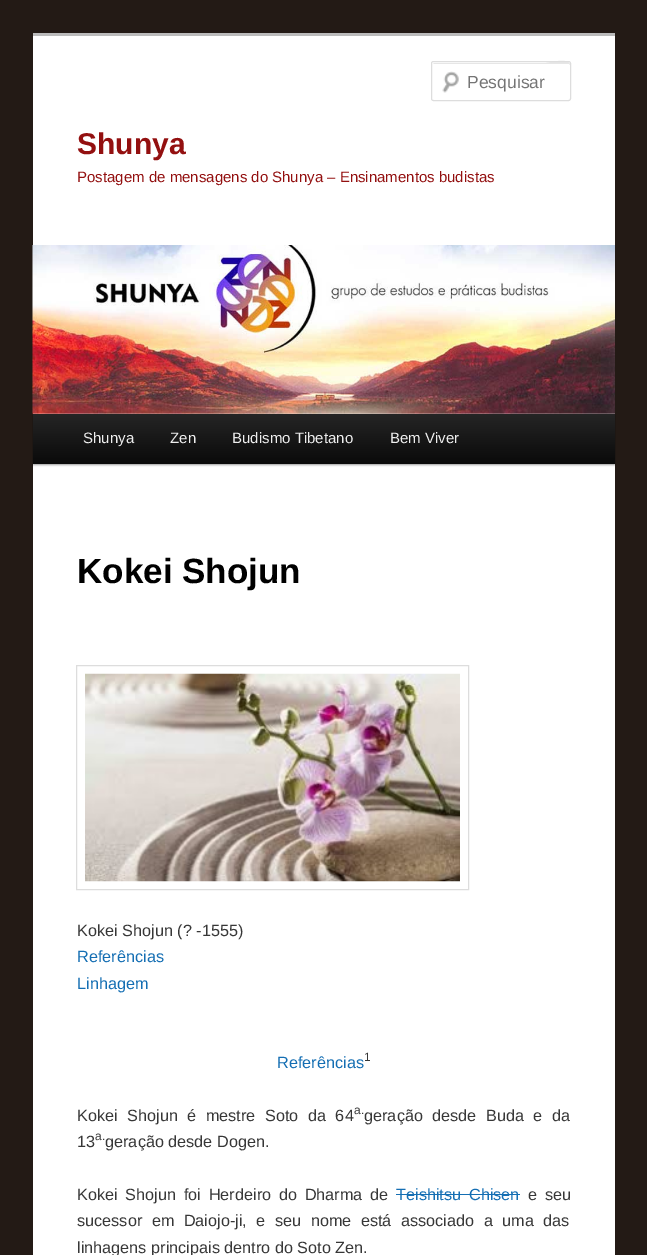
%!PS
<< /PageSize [647 1255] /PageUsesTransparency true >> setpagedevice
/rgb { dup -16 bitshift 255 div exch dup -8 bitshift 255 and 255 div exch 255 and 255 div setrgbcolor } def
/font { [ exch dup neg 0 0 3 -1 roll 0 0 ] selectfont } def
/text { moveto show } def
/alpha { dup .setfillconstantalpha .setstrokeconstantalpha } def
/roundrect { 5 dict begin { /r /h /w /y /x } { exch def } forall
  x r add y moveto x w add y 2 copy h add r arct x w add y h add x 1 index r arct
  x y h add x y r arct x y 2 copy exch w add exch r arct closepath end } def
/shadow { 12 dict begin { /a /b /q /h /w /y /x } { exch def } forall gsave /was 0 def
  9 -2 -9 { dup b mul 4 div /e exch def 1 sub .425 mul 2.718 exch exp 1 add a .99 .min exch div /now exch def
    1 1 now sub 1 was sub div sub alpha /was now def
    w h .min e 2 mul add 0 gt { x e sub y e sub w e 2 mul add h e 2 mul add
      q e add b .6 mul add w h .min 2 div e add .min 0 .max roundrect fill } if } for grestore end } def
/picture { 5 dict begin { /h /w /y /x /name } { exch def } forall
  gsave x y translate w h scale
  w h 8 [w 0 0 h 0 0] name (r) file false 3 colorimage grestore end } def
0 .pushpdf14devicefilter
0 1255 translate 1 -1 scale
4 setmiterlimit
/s1 { /LiberationSans-Regular 17.5 font 16#757575 rgb } def
/s2 { /LiberationSans-Bold 30 font 16#931010 rgb } def
/s3 { /LiberationSans-Regular 15 font 16#931010 rgb } def
/s4 { /LiberationSans-Regular 15 font 16#EEEEEE rgb } def
/s5 { /LiberationSans-Bold 35 font 16#000000 rgb } def
/s6 { /LiberationSans-Regular 16.25 font 16#373737 rgb } def
/s7 { /LiberationSans-Regular 16.25 font 16#146EB3 rgb } def
/s8 { /LiberationSans-Regular 12 font 16#373737 rgb } def
16#231A15 rgb
0 0 647 1255 rectfill
16#FFFFFF rgb
33 36 582 1219 rectfill
16#BBBBBB rgb
33 33 582 3 rectfill
(pic1.raw) 442 71 17 22 picture
16#E6E6E6 rgb
434 64 moveto 569 64 lineto 570 65 lineto 570 57 547 63 546 63 curveto 434 63 lineto 433 64 lineto closepath fill
16#DDDDDD rgb
431.5 61.5 139 39 2 roundrect stroke
s1
(Pesquisar) 467 88 text
s2
(Shunya) 77 154 text
s3
(Postagem de mensagens do Shunya – Ensinamentos budistas) 77 182 text
16#000000 rgb
33 415 582 50 0 1 0.4 shadow
(pic2.raw) 32 245 583 169 picture
gsave 33 414 moveto 615 414 lineto 615 464 lineto 33 464 lineto closepath clip newpath
<< /ShadingType 2 /ColorSpace /DeviceRGB /Coords [324 414 324 464] /Extend [true true] /Function << /FunctionType 2 /Domain [0 1] /C0 [0.145 0.145 0.145] /C1 [0.039 0.039 0.039] /N 1 >> >> shfill grestore
s4
(Shunya) 83 443 text
(Zen) 170 443 text
(Budismo Tibetano) 232 443 text
(Bem Viver) 390 443 text
s5
(Kokei Shojun) 77 583 text
16#DDDDDD rgb
76.5 665.5 392 224 rectstroke
(pic3.raw) 85 673 375 209 picture
s6
(Kokei Shojun \(? -1555\)) 77 936 text
s7
(Referências) 77 962 text
(Linhagem) 77 989 text
(Referências) 277 1068 text
s8
(1) 364 1061 text
/LiberationSans-Regular 16.25 font
77 1121 moveto 5 0 32 (Kokei Shojun é mestre Soto da 64) widthshow
s8
(a.) 354 1114 text
/LiberationSans-Regular 16.25 font
364 1121 moveto 5 0 32 (geração desde Buda e da) widthshow
(13) 77 1147 text
s8
(a.) 95 1140 text
s6
(geração desde Dogen.) 105 1147 text
77 1200 moveto 3.25 0 32 (Kokei Shojun foi Herdeiro do Dharma de) widthshow
16#146EB3 rgb
396 1200 moveto 3.25 0 32 (Teishitsu Chisen) widthshow
396 1194 124 1 rectfill
16#373737 rgb
528 1200 moveto 3.25 0 32 (e seu) widthshow
77 1226 moveto 5 0 32 (sucessor em Daiojo-ji, e seu nome está associado a uma das) widthshow
(linhagens principais dentro do Soto Zen.) 77 1253 text
.poppdf14devicefilter showpage
